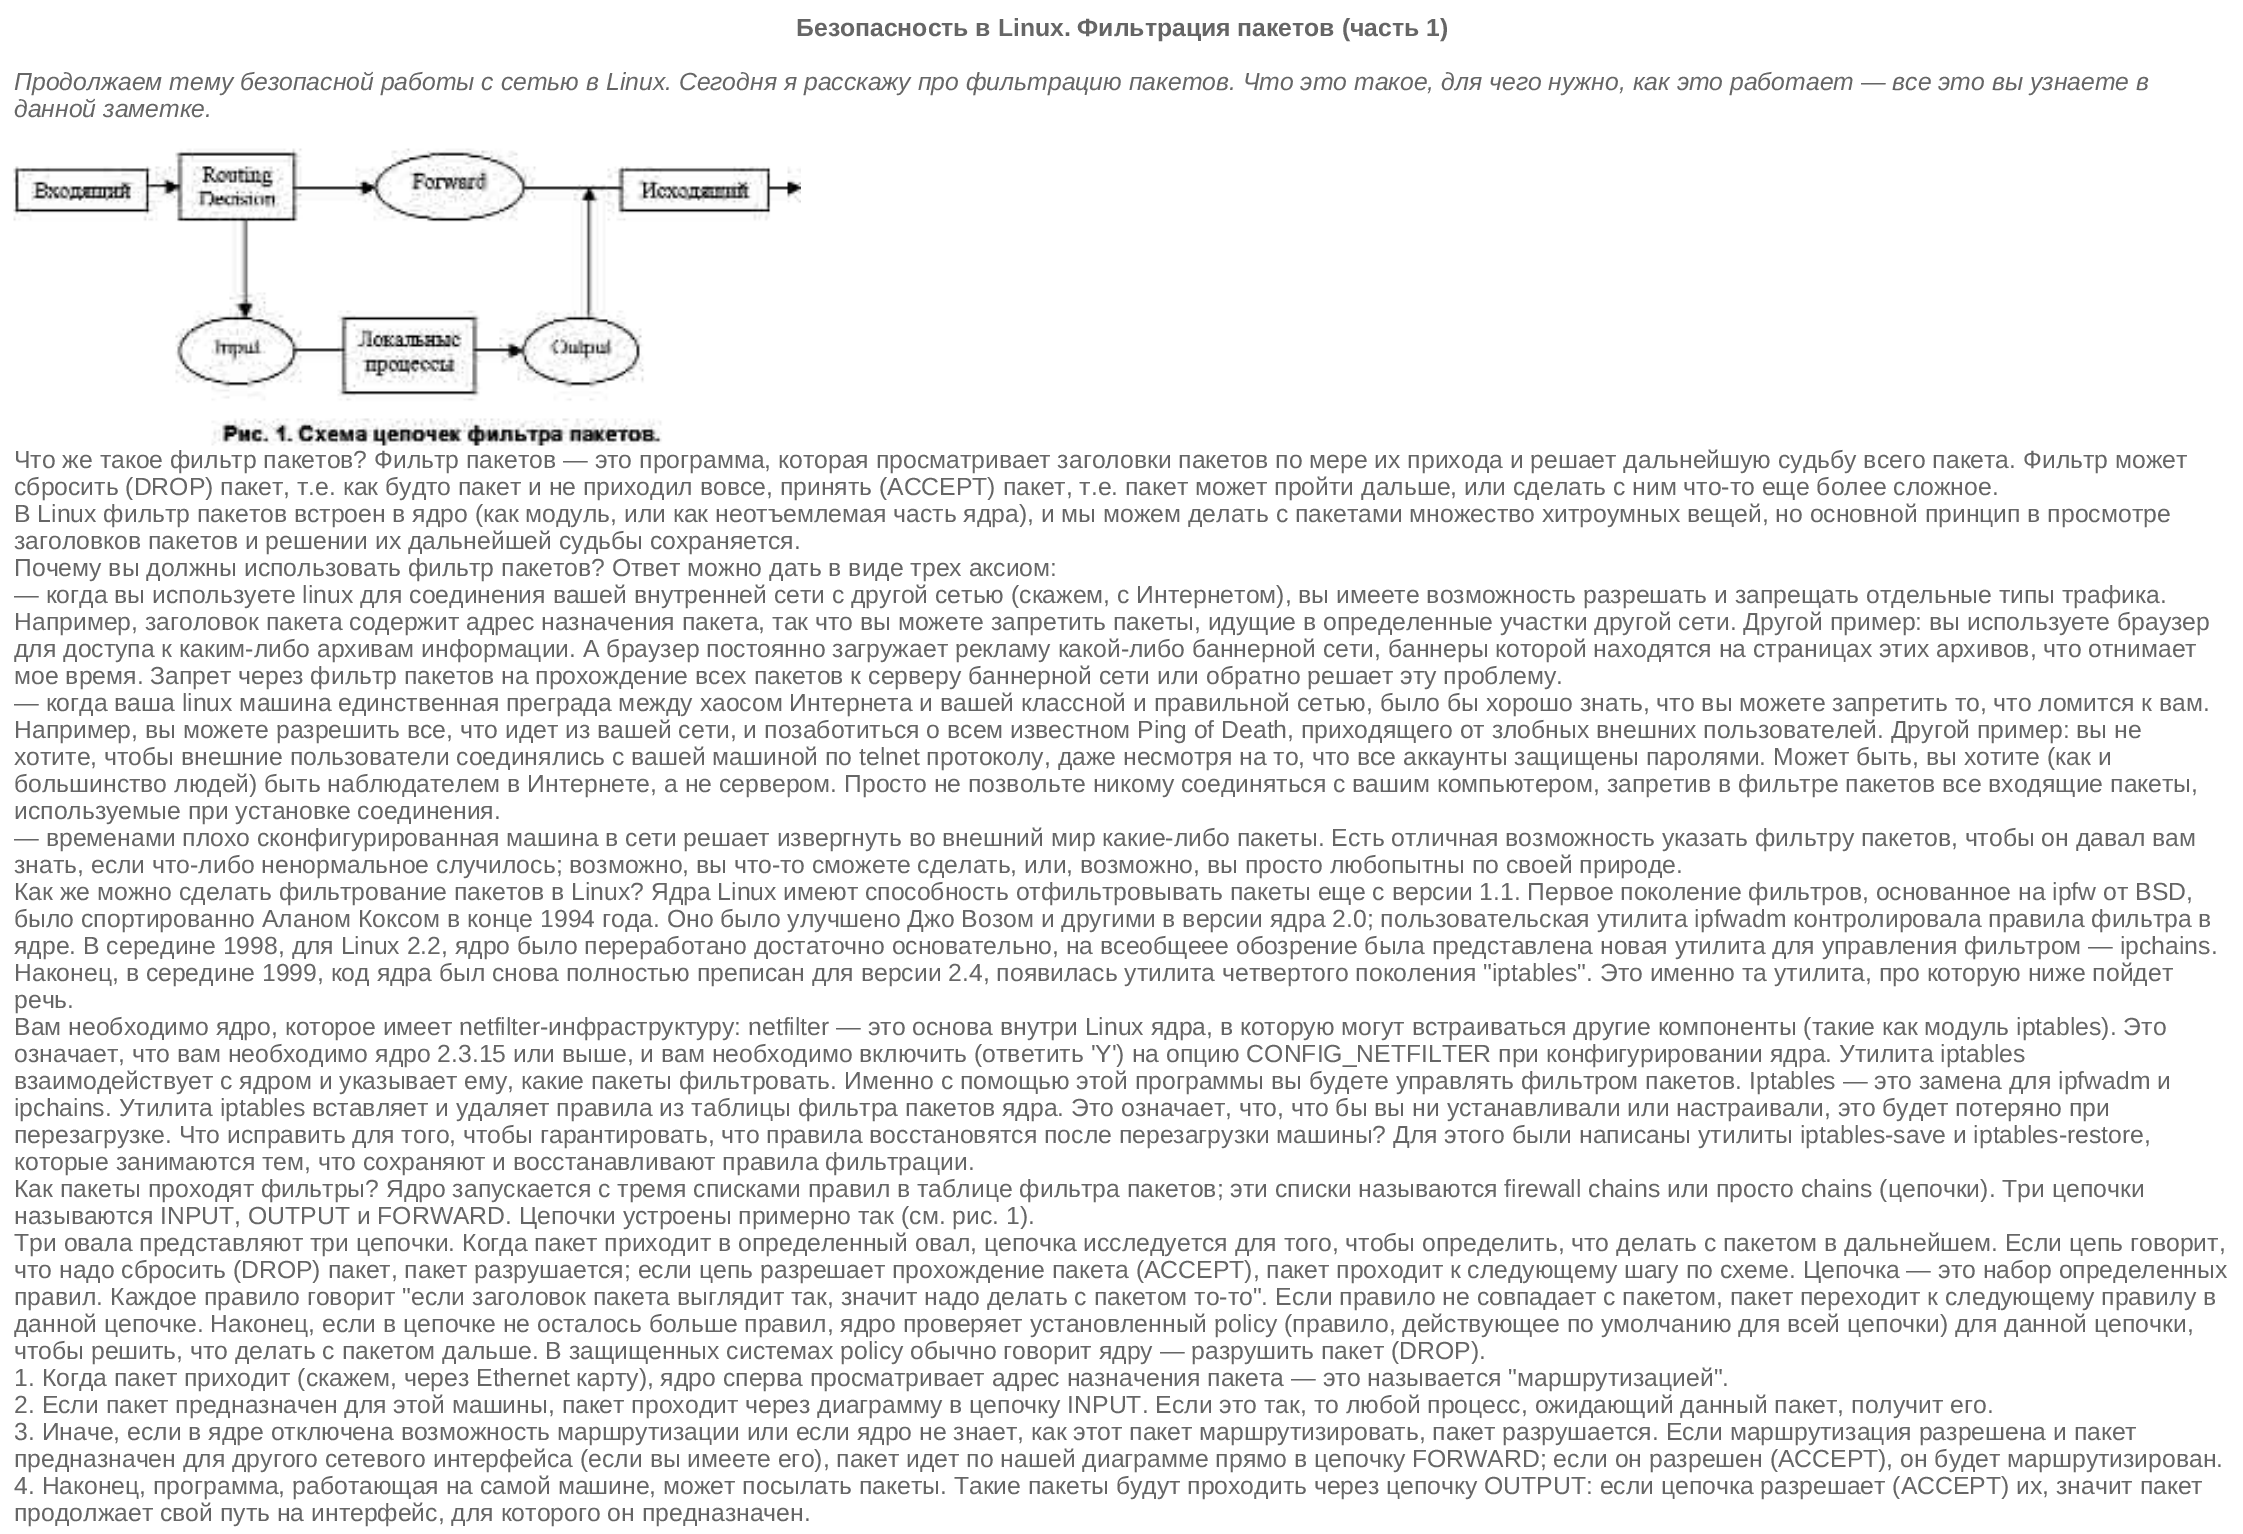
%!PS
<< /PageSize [2243 1534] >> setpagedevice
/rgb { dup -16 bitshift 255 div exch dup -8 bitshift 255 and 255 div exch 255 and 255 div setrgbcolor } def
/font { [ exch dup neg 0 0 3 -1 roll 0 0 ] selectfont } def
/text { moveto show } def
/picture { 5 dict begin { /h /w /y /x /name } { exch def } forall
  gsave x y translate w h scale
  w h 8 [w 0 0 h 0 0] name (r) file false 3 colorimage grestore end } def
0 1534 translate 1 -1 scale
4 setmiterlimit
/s1 { /LiberationSans-Bold 24.75 font 16#666666 rgb } def
/s2 { /LiberationSans-Italic 24.75 font 16#666666 rgb } def
/s3 { /LiberationSans-Regular 24.75 font 16#666666 rgb } def
16#FFFFFF rgb
0 0 2243 1534 rectfill
s1
(Безопасность в Linux. Фильтрация пакетов \(часть 1\)) 796 36 text
s2
(Продолжаем тему безопасной работы с сетью в Linux. Сегодня я расскажу про фильтрацию пакетов. Что это такое, для чего нужно, как это работает — все это вы узнаете в) 14 90 text
(данной заметке.) 14 117 text
(pic1.raw) 13 148 788 298 picture
s3
(Что же такое фильтр пакетов? Фильтр пакетов — это программа, которая просматривает заголовки пакетов по мере их прихода и решает дальнейшую судьбу всего пакета. Фильтр может) 14 468 text
(сбросить \(DROP\) пакет, т.е. как будто пакет и не приходил вовсе, принять \(ACCEPT\) пакет, т.е. пакет может пройти дальше, или сделать с ним что-то еще более сложное.) 14 495 text
(В Linux фильтр пакетов встроен в ядро \(как модуль, или как неотъемлемая часть ядра\), и мы можем делать с пакетами множество хитроумных вещей, но основной принцип в просмотре) 14 522 text
(заголовков пакетов и решении их дальнейшей судьбы сохраняется.) 14 549 text
(Почему вы должны использовать фильтр пакетов? Ответ можно дать в виде трех аксиом:) 14 576 text
(— когда вы используете linux для соединения вашей внутренней сети с другой сетью \(скажем, с Интернетом\), вы имеете возможность разрешать и запрещать отдельные типы трафика.) 14 603 text
(Например, заголовок пакета содержит адрес назначения пакета, так что вы можете запретить пакеты, идущие в определенные участки другой сети. Другой пример: вы используете браузер) 14 630 text
(для доступа к каким-либо архивам информации. А браузер постоянно загружает рекламу какой-либо баннерной сети, баннеры которой находятся на страницах этих архивов, что отнимает) 14 657 text
(мое время. Запрет через фильтр пакетов на прохождение всех пакетов к серверу баннерной сети или обратно решает эту проблему.) 14 684 text
(— когда ваша linux машина единственная преграда между хаосом Интернета и вашей классной и правильной сетью, было бы хорошо знать, что вы можете запретить то, что ломится к вам.) 14 711 text
(Например, вы можете разрешить все, что идет из вашей сети, и позаботиться о всем известном Ping of Death, приходящего от злобных внешних пользователей. Другой пример: вы не) 14 738 text
(хотите, чтобы внешние пользователи соединялись с вашей машиной по telnet протоколу, даже несмотря на то, что все аккаунты защищены паролями. Может быть, вы хотите \(как и) 14 765 text
(большинство людей\) быть наблюдателем в Интернете, а не сервером. Просто не позвольте никому соединяться с вашим компьютером, запретив в фильтре пакетов все входящие пакеты,) 14 792 text
(используемые при установке соединения.) 14 819 text
(— временами плохо сконфигурированная машина в сети решает извергнуть во внешний мир какие-либо пакеты. Есть отличная возможность указать фильтру пакетов, чтобы он давал вам) 14 846 text
(знать, если что-либо ненормальное случилось; возможно, вы что-то сможете сделать, или, возможно, вы просто любопытны по своей природе.) 14 873 text
(Как же можно сделать фильтрование пакетов в Linux? Ядра Linux имеют способность отфильтровывать пакеты еще с версии 1.1. Первое поколение фильтров, основанное на ipfw от BSD,) 14 900 text
(было спортированно Аланом Коксом в конце 1994 года. Оно было улучшено Джо Возом и другими в версии ядра 2.0; пользовательская утилита ipfwadm контролировала правила фильтра в) 14 927 text
(ядре. В середине 1998, для Linux 2.2, ядро было переработано достаточно основательно, на всеобщеее обозрение была представлена новая утилита для управления фильтром — ipchains.) 14 954 text
(Наконец, в середине 1999, код ядра был снова полностью преписан для версии 2.4, появилась утилита четвертого поколения "iptables". Это именно та утилита, про которую ниже пойдет) 14 981 text
(речь.) 14 1008 text
(Вам необходимо ядро, которое имеет netfilter-инфраструктуру: netfilter — это основа внутри Linux ядра, в которую могут встраиваться другие компоненты \(такие как модуль iptables\). Это) 14 1035 text
(означает, что вам необходимо ядро 2.3.15 или выше, и вам необходимо включить \(ответить 'Y'\) на опцию CONFIG_NETFILTER при конфигурировании ядра. Утилита iptables) 14 1062 text
(взаимодействует с ядром и указывает ему, какие пакеты фильтровать. Именно с помощью этой программы вы будете управлять фильтром пакетов. Iptables — это замена для ipfwadm и) 14 1089 text
(ipchains. Утилита iptables вставляет и удаляет правила из таблицы фильтра пакетов ядра. Это означает, что, что бы вы ни устанавливали или настраивали, это будет потеряно при) 14 1116 text
(перезагрузке. Что исправить для того, чтобы гарантировать, что правила восстановятся после перезагрузки машины? Для этого были написаны утилиты iptables-save и iptables-restore,) 14 1143 text
(которые занимаются тем, что сохраняют и восстанавливают правила фильтрации.) 14 1170 text
(Как пакеты проходят фильтры? Ядро запускается с тремя списками правил в таблице фильтра пакетов; эти списки называются firewall chains или просто chains \(цепочки\). Три цепочки) 14 1197 text
(называются INPUT, OUTPUT и FORWARD. Цепочки устроены примерно так \(см. рис. 1\).) 14 1224 text
(Три овала представляют три цепочки. Когда пакет приходит в определенный овал, цепочка исследуется для того, чтобы определить, что делать с пакетом в дальнейшем. Если цепь говорит,) 14 1251 text
(что надо сбросить \(DROP\) пакет, пакет разрушается; если цепь разрешает прохождение пакета \(ACCEPT\), пакет проходит к следующему шагу по схеме. Цепочка — это набор определенных) 14 1278 text
(правил. Каждое правило говорит "если заголовок пакета выглядит так, значит надо делать с пакетом то-то". Если правило не совпадает с пакетом, пакет переходит к следующему правилу в) 14 1305 text
(данной цепочке. Наконец, если в цепочке не осталось больше правил, ядро проверяет установленный policy \(правило, действующее по умолчанию для всей цепочки\) для данной цепочки,) 14 1332 text
(чтобы решить, что делать с пакетом дальше. В защищенных системах policy обычно говорит ядру — разрушить пакет \(DROP\).) 14 1359 text
(1. Когда пакет приходит \(скажем, через Ethernet карту\), ядро сперва просматривает адрес назначения пакета — это называется "маршрутизацией".) 14 1386 text
(2. Если пакет предназначен для этой машины, пакет проходит через диаграмму в цепочку INPUT. Если это так, то любой процесс, ожидающий данный пакет, получит его.) 14 1413 text
(3. Иначе, если в ядре отключена возможность маршрутизации или если ядро не знает, как этот пакет маршрутизировать, пакет разрушается. Если маршрутизация разрешена и пакет) 14 1440 text
(предназначен для другого сетевого интерфейса \(если вы имеете его\), пакет идет по нашей диаграмме прямо в цепочку FORWARD; если он разрешен \(ACCEPT\), он будет маршрутизирован.) 14 1467 text
(4. Наконец, программа, работающая на самой машине, может посылать пакеты. Такие пакеты будут проходить через цепочку OUTPUT: если цепочка разрешает \(ACCEPT\) их, значит пакет) 14 1494 text
(продолжает свой путь на интерфейс, для которого он предназначен.) 14 1521 text
showpage
